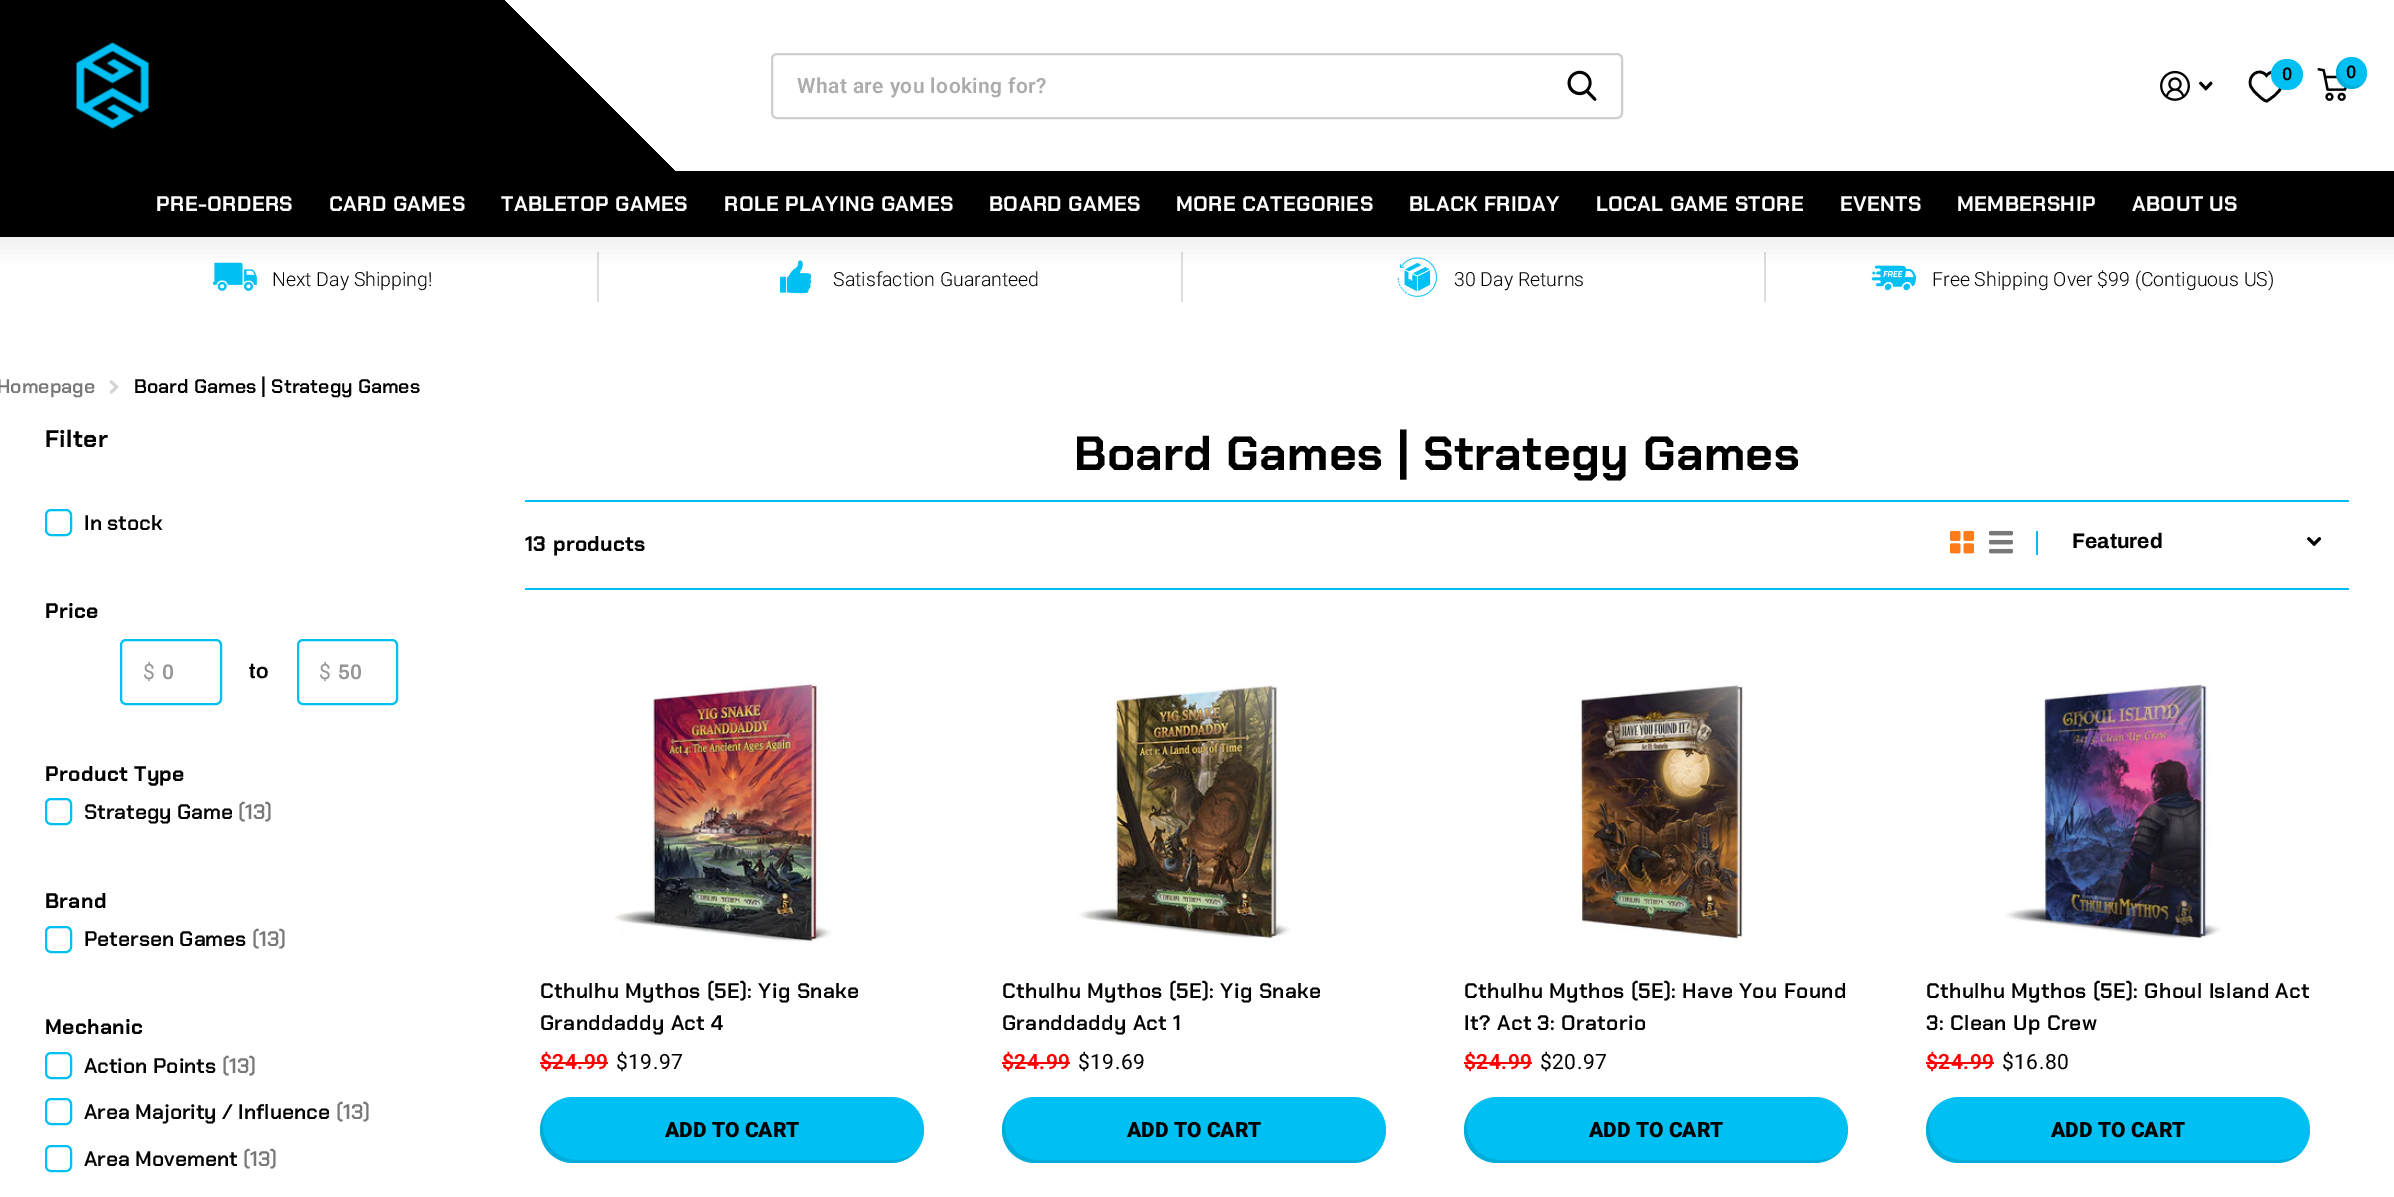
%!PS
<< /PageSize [2394 1197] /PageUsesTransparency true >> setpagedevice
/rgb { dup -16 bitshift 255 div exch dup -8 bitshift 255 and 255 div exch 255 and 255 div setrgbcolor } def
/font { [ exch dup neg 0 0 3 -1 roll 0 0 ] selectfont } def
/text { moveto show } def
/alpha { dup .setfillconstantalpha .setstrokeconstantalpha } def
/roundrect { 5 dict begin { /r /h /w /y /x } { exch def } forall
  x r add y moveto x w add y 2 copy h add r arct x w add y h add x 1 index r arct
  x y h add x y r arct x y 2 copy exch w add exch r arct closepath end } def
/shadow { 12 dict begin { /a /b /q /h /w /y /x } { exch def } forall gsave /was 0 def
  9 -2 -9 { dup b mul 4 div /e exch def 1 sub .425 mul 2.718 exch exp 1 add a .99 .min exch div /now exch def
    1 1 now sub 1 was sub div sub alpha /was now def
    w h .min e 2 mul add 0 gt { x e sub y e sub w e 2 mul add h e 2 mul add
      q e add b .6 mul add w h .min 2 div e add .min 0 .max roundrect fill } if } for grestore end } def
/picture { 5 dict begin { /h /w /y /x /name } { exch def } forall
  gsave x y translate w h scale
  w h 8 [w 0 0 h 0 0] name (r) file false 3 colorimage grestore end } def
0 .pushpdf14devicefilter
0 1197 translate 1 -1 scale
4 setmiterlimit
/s1 { /Archivo-SemiBold 18 font 16#000000 rgb } def
/s2 { /Roboto-Light 19.5 font 16#000000 rgb } def
/s3 { /ChakraPetch-SemiBold 19.5 font 16#787878 rgb } def
/s4 { /ChakraPetch-SemiBold 19.5 font 16#000000 rgb } def
/s5 { /ChakraPetch-SemiBold 21 font 16#000000 rgb } def
/s6 { /Archivo-SemiBold 21 font 16#959595 rgb } def
/s7 { /Archivo-SemiBold 21 font 16#000000 rgb } def
/s8 { /ChakraPetch-SemiBold 21 font 16#787878 rgb } def
/s9 { /Archivo-Bold 21 font 16#000000 rgb } def
/s10 { /Roboto-Black 21 font 16#000000 rgb } def
16#FFFFFF rgb
0 0 2394 1197 rectfill
gsave 0 0 moveto 675 0 lineto 675 171 lineto 0 171 lineto closepath clip newpath
<< /ShadingType 2 /ColorSpace /DeviceRGB /Coords [479 836 1915 -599] /Extend [true true] /Function << /FunctionType 3 /Domain [0 1] /Functions [<< /FunctionType 2 /Domain [0 1] /C0 [0 0 0] /C1 [0 0 0] /N 1 >> << /FunctionType 2 /Domain [0 1] /C0 [1 1 1] /C1 [1 1 1] /N 1 >>] /Bounds [0.3] /Encode [0 1 0 1] >> >> shfill grestore
(pic1.raw) 76 42 73 87 picture
(pic2.raw) 2160 70 30 31 picture
(pic3.raw) 2199 81 14 10 picture
16#000000 rgb
2.6 setlinewidth
2266.5 101 moveto 2264.5 101 2260.5 97.5 2259 96 curveto 2256 93.5 2252 90 2250.5 85.5 curveto 2247.5 75 2259.5 67 2266.5 75.5 curveto 2273 67.5 2285 74.5 2282.5 84.5 curveto 2281 89.5 2277.5 93 2274 96 curveto 2273 96.5 2268 101 2266.5 101 curveto closepath stroke
16#00C0F3 rgb
2271 59 32 31 15.5 roundrect fill
s1
(0) 2282 80 text
(pic4.raw) 2317 68 30 33 picture
16#00C0F3 rgb
2336 57 31 32 15.5 roundrect fill
0.1 alpha
16#000000 rgb
2364 83 moveto 2361.5 85 2358 86 2354 86 curveto 2340 86 2335.5 70 2341.5 60.5 curveto 2334.5 66.5 2334 78 2340.5 84.5 curveto 2347 91 2358.5 90 2364 83 curveto closepath fill
1 alpha
(0) 2346 78 text
16#CECECE rgb
2 setlinewidth
772 54 850 64 5 roundrect stroke
/Roboto-SemiBold 21 font
16#ACACAC rgb
797 93 moveto 0.4 0 (What are you looking for?) ashow
(pic5.raw) 1567 70 30 31 picture
16#DEDEDE rgb
597 252 2 50 rectfill
(pic6.raw) 213 262 44 29 picture
1181 252 2 50 rectfill
(pic7.raw) 780 260 32 34 picture
1764 252 2 50 rectfill
(pic8.raw) 1397 257 40 40 picture
(pic9.raw) 1871 265 45 26 picture
16#000000 rgb
-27 186 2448 66 0 9 0.05 shadow
0 171 2394 66 rectfill
/ChakraPetch-Bold 21 font
16#FFFFFF rgb
156 211 moveto 0.4 0 (PRE-ORDERS) ashow
329 211 moveto 0.4 0 (CARD GAMES) ashow
501 211 moveto 0.4 0 (TABLETOP GAMES) ashow
724 211 moveto 0.4 0 (ROLE PLAYING GAMES) ashow
989 211 moveto 0.4 0 (BOARD GAMES) ashow
1176 211 moveto 0.4 0 (MORE CATEGORIES) ashow
1409 211 moveto 0.4 0 (BLACK FRIDAY) ashow
1596 211 moveto 0.4 0 (LOCAL GAME STORE) ashow
1840 211 moveto 0.4 0 (EVENTS) ashow
1957 211 moveto 0.4 0 (MEMBERSHIP) ashow
2132 211 moveto 0.4 0 (ABOUT US) ashow
s2
(Next Day Shipping!) 272 286 text
(Satisfaction Guaranteed) 833 286 text
(30 Day Returns) 1454 286 text
(Free Shipping Over $99 \(Contiguous US\)) 1932 286 text
s3
(Homepage) -3 393 text
(pic10.raw) 109 380 10 14 picture
s4
(Board Games | Strategy Games) 134 393 text
/ChakraPetch-Bold 24 font
45 447 moveto 0.4 0 (Filter) ashow
16#00C0F3 rgb
46 510 25 25 5 roundrect stroke
s5
(In stock) 84 530 text
/ChakraPetch-Bold 21 font
45 618 moveto 0.4 0 (Price) ashow
16#00C0F3 rgb
121 640 100 64 5 roundrect stroke
/Roboto-Regular 21 font
16#959595 rgb
143 679 moveto 0.4 0 ($) ashow
s6
(0) 162 679 text
s7
(to) 249 678 text
16#00C0F3 rgb
298 640 99 64 5 roundrect stroke
/Roboto-Regular 21 font
16#959595 rgb
319 679 moveto 0.4 0 ($) ashow
s6
(50) 338 679 text
/ChakraPetch-Bold 21 font
16#000000 rgb
45 781 moveto 0.4 0 (Product Type) ashow
16#00C0F3 rgb
46 799 25 25 5 roundrect stroke
s5
(Strategy Game) 84 819 text
s8
(\(13\)) 238 819 text
/ChakraPetch-Bold 21 font
16#000000 rgb
45 908 moveto 0.4 0 (Brand) ashow
16#00C0F3 rgb
46 927 25 25 5 roundrect stroke
s5
(Petersen Games) 84 946 text
s8
(\(13\)) 252 946 text
/ChakraPetch-Bold 21 font
16#000000 rgb
45 1034 moveto 0.4 0 (Mechanic) ashow
16#00C0F3 rgb
46 1053 25 25 5 roundrect stroke
s5
(Action Points) 84 1073 text
s8
(\(13\)) 222 1073 text
16#00C0F3 rgb
46 1099 25 25 5 roundrect stroke
s5
(Area Majority / Influence) 84 1119 text
s8
(\(13\)) 336 1119 text
16#00C0F3 rgb
46 1146 25 25 5 roundrect stroke
s5
(Area Movement) 84 1166 text
s8
(\(13\)) 243 1166 text
/ChakraPetch-Bold 48 font
16#000000 rgb
1074 470 moveto 0.4 0 (Board Games | Strategy Games) ashow
16#00C0F3 rgb
525 500 1824 2 rectfill
525 588 1824 2 rectfill
/ChakraPetch-Bold 21 font
16#000000 rgb
525 551 moveto 0.4 0 (13 products) ashow
(pic11.raw) 1950 530 24 24 picture
(pic12.raw) 1989 530 24 24 picture
16#00C0F3 rgb
2036 531 2 24 rectfill
(pic13.raw) 2307 537 14 9 picture
s9
(Featured) 2072 548 text
(pic14.raw) 614 683 219 260 picture
/ChakraPetch-SemiBold 21 font
540 998 moveto 0.4 0 (Cthulhu Mythos \(5E\): Yig Snake) ashow
540 1030 moveto 0.4 0 (Granddaddy Act 4) ashow
/Roboto-SemiBold 21 font
16#FF0000 rgb
540 1069 moveto 0.4 0 ($24.99) ashow
540 1062 68 2 rectfill
/Roboto-Regular 21 font
16#000000 rgb
616 1069 moveto 0.4 0 ($19.97) ashow
16#00C0F3 rgb
540 1097 384 66 33 roundrect fill
0.1 alpha
16#000000 rgb
550 1107 moveto 544 1113 540 1121 540 1130 curveto 540 1148 555 1163 573 1163 curveto 891 1163 lineto 901 1163 911 1158 917 1151 curveto 911 1156 903 1160 894 1160 curveto 576 1160 lineto 558 1160 543 1145 543 1126 curveto 543 1119 545 1112 550 1107 curveto closepath fill
1 alpha
s10
(ADD TO CART) 665 1137 text
(pic15.raw) 1079 685 212 254 picture
/ChakraPetch-SemiBold 21 font
1002 998 moveto 0.4 0 (Cthulhu Mythos \(5E\): Yig Snake) ashow
1002 1030 moveto 0.4 0 (Granddaddy Act 1) ashow
/Roboto-SemiBold 21 font
16#FF0000 rgb
1002 1069 moveto 0.4 0 ($24.99) ashow
1002 1062 68 2 rectfill
/Roboto-Regular 21 font
16#000000 rgb
1078 1069 moveto 0.4 0 ($19.69) ashow
16#00C0F3 rgb
1002 1097 384 66 33 roundrect fill
0.1 alpha
16#000000 rgb
1012 1107 moveto 1006 1113 1002 1121 1002 1130 curveto 1002 1148 1017 1163 1035 1163 curveto 1353 1163 lineto 1363 1163 1373 1158 1379 1151 curveto 1373 1156 1365 1160 1356 1160 curveto 1038 1160 lineto 1020 1160 1005 1145 1005 1126 curveto 1005 1119 1007 1112 1012 1107 curveto closepath fill
1 alpha
s10
(ADD TO CART) 1127 1137 text
(pic16.raw) 1579 685 165 254 picture
/ChakraPetch-SemiBold 21 font
1464 998 moveto 0.4 0 (Cthulhu Mythos \(5E\): Have You Found) ashow
1464 1030 moveto 0.4 0 (It? Act 3: Oratorio) ashow
/Roboto-SemiBold 21 font
16#FF0000 rgb
1464 1069 moveto 0.4 0 ($24.99) ashow
1464 1062 68 2 rectfill
/Roboto-Regular 21 font
16#000000 rgb
1540 1069 moveto 0.4 0 ($20.97) ashow
16#00C0F3 rgb
1464 1097 384 66 33 roundrect fill
0.1 alpha
16#000000 rgb
1474 1107 moveto 1468 1113 1464 1121 1464 1130 curveto 1464 1148 1479 1163 1497 1163 curveto 1815 1163 lineto 1825 1163 1835 1158 1841 1151 curveto 1835 1156 1827 1160 1818 1160 curveto 1500 1160 lineto 1482 1160 1467 1145 1467 1126 curveto 1467 1119 1469 1112 1474 1107 curveto closepath fill
1 alpha
s10
(ADD TO CART) 1589 1137 text
(pic17.raw) 2005 684 216 255 picture
/ChakraPetch-SemiBold 21 font
1926 998 moveto 0.4 0 (Cthulhu Mythos \(5E\): Ghoul Island Act) ashow
1926 1030 moveto 0.4 0 (3: Clean Up Crew) ashow
/Roboto-SemiBold 21 font
16#FF0000 rgb
1926 1069 moveto 0.4 0 ($24.99) ashow
1926 1062 68 2 rectfill
/Roboto-Regular 21 font
16#000000 rgb
2002 1069 moveto 0.4 0 ($16.80) ashow
16#00C0F3 rgb
1926 1097 384 66 33 roundrect fill
0.1 alpha
16#000000 rgb
1936 1107 moveto 1930 1113 1926 1121 1926 1130 curveto 1926 1148 1941 1163 1959 1163 curveto 2277 1163 lineto 2287 1163 2297 1158 2303 1151 curveto 2297 1156 2289 1160 2280 1160 curveto 1962 1160 lineto 1944 1160 1929 1145 1929 1126 curveto 1929 1119 1931 1112 1936 1107 curveto closepath fill
1 alpha
s10
(ADD TO CART) 2051 1137 text
.poppdf14devicefilter showpage
